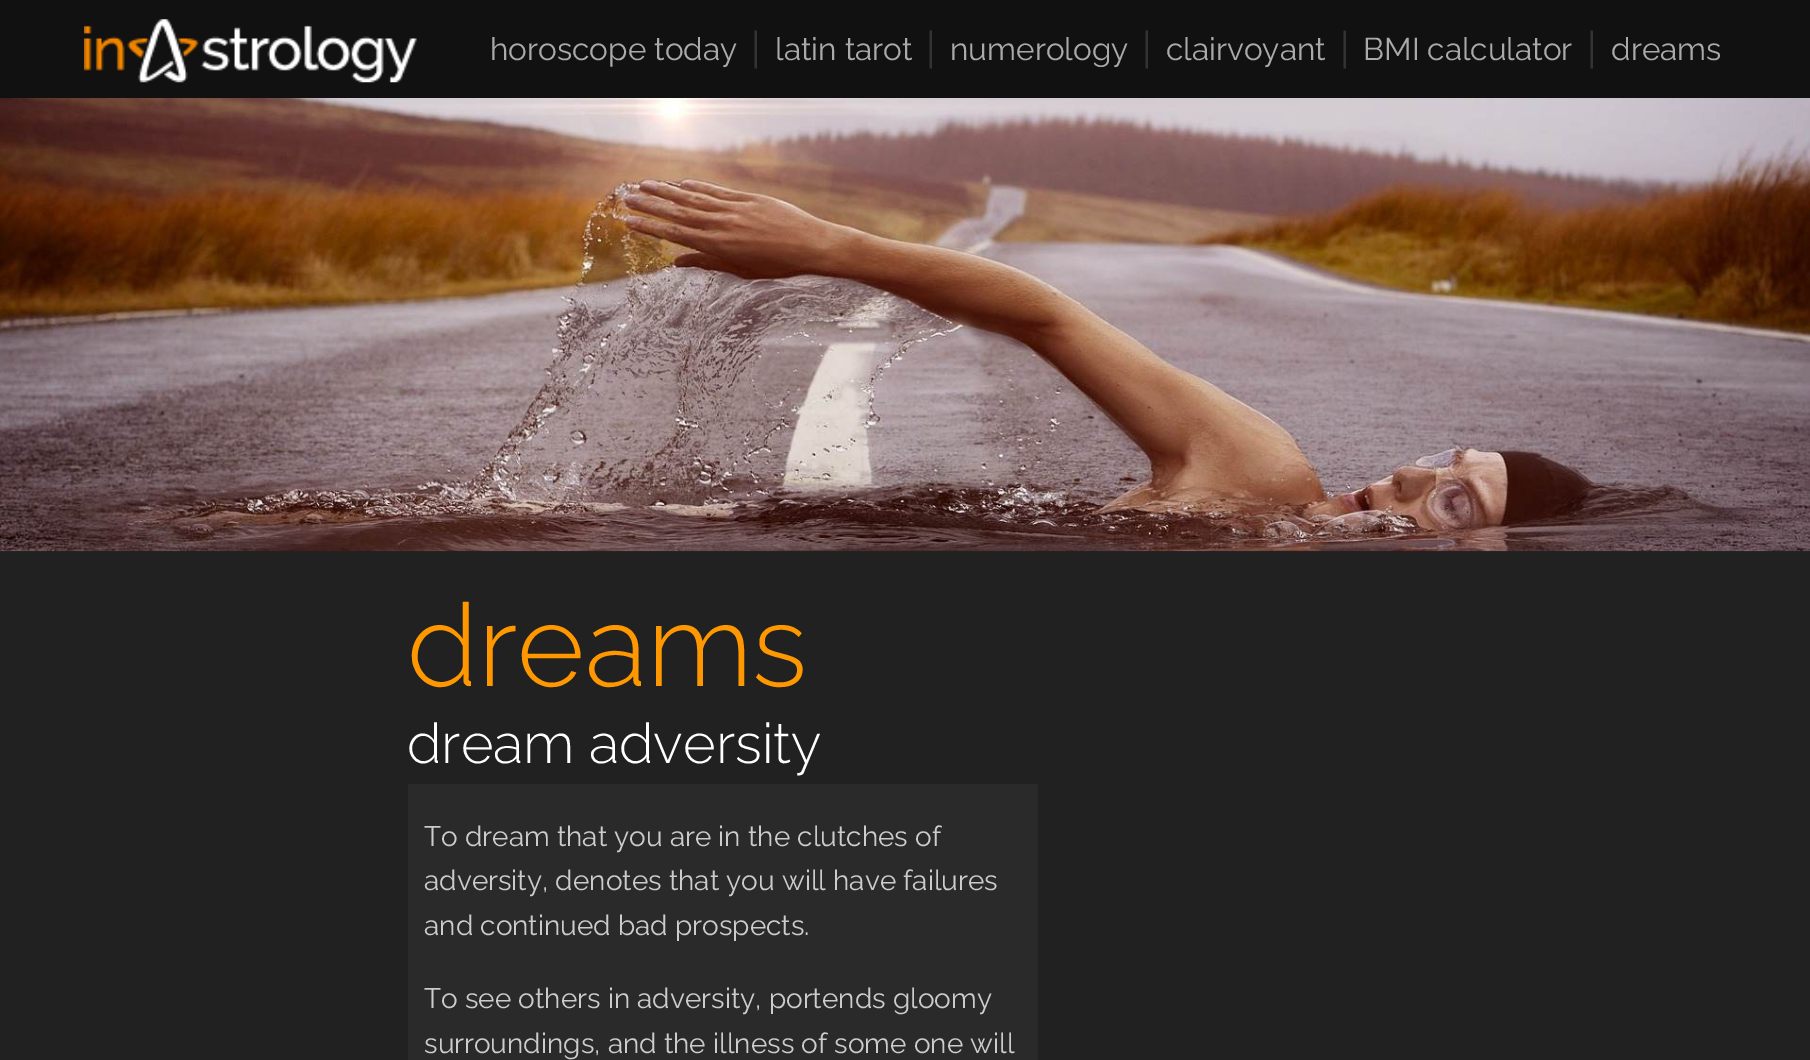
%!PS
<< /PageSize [1810 1060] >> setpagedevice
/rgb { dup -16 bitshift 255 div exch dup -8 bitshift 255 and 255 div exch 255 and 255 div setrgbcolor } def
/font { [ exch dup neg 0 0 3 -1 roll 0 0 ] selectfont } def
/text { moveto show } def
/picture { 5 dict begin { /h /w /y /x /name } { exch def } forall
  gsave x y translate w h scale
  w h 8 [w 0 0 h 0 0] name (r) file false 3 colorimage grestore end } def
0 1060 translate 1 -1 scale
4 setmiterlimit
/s1 { /Raleway-Regular 31.5 font 16#AAAAAA rgb } def
/s2 { /Raleway-Regular 42 font 16#333333 rgb } def
/s3 { /Raleway-Light 115.5 font 16#FF9800 rgb } def
/s4 { /Raleway-Light 56 font 16#FFFFFF rgb } def
/s5 { /Raleway-Regular 28 font 16#CCCCCC rgb } def
16#212121 rgb
0 0 1810 1060 rectfill
16#111111 rgb
0 0 1810 98 rectfill
(pic1.raw) 84 19 333 64 picture
s1
(horoscope today) 490 60 text
s2
(|) 751 63 text
s1
(latin tarot) 775 60 text
s2
(|) 926 63 text
s1
(numerology) 950 60 text
s2
(|) 1142 63 text
s1
(clairvoyant) 1166 60 text
s2
(|) 1340 63 text
s1
(BMI calculator) 1363 60 text
s2
(|) 1587 63 text
s1
(dreams) 1611 60 text
(pic2.raw) 0 98 1810 454 picture
s3
(dreams) 407 686 text
s4
(dream adversity) 407 763 text
16#2A2A2A rgb
408 784 630 276 rectfill
s5
(To dream that you are in the clutches of) 424 846 text
(adversity, denotes that you will have failures) 424 890 text
(and continued bad prospects.) 424 935 text
(To see others in adversity, portends gloomy) 424 1008 text
(surroundings, and the illness of some one will) 424 1053 text
showpage
